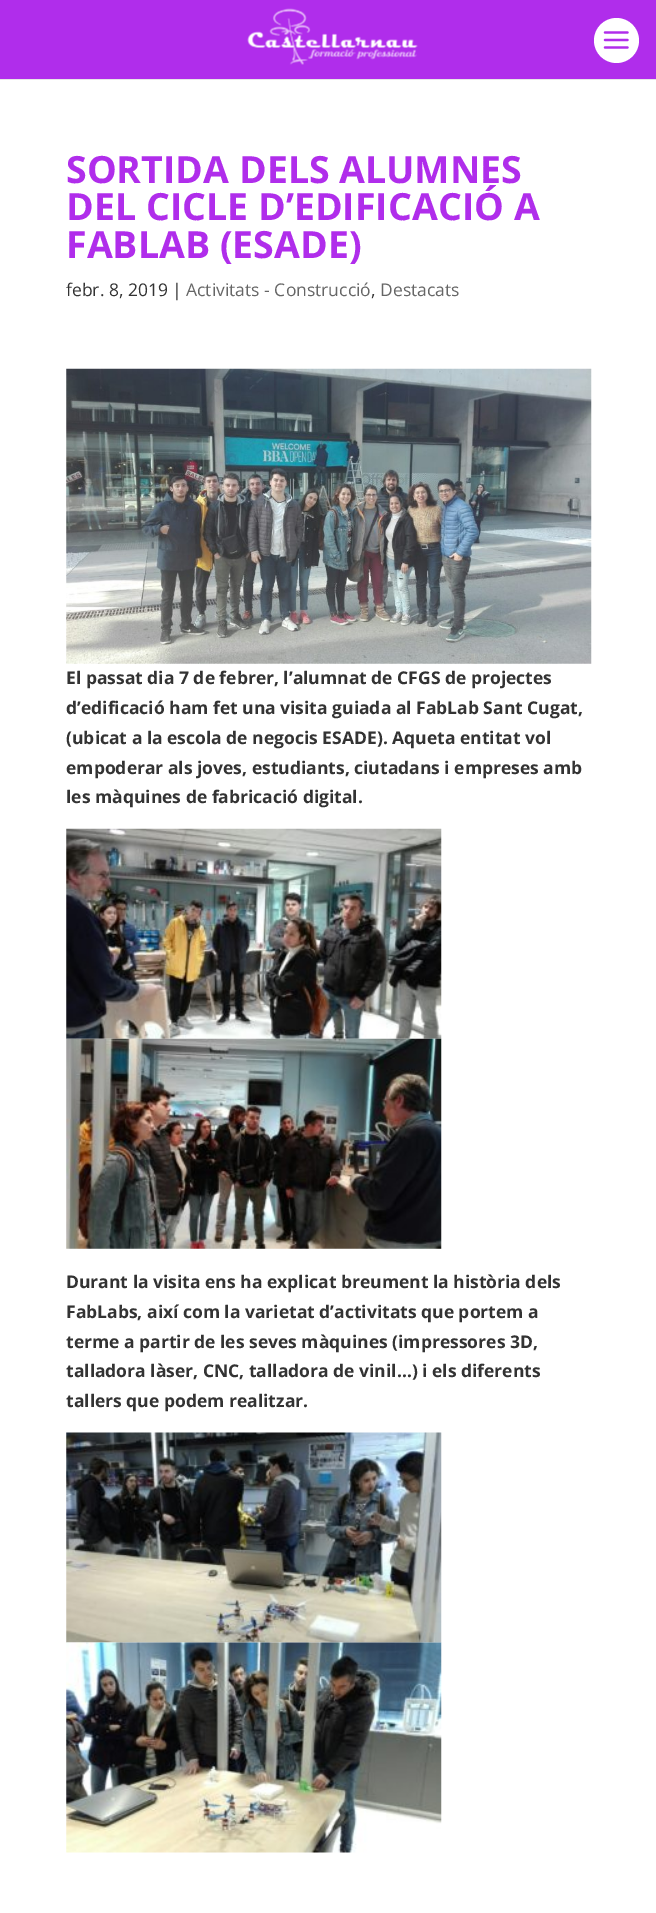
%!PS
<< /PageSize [656 1913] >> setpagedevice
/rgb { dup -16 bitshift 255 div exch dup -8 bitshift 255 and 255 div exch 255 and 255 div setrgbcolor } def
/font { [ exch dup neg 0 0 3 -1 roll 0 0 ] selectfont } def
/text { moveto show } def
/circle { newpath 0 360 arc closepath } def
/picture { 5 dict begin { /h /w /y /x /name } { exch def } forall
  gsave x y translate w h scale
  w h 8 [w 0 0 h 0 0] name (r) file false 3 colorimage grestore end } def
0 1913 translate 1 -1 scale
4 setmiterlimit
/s1 { /OpenSans-Bold 37.5 font 16#B02DEB rgb } def
/s2 { /OpenSans-Regular 17.5 font 16#333333 rgb } def
/s3 { /OpenSans-Regular 17.5 font 16#666666 rgb } def
/s4 { /OpenSans-Bold 17.5 font 16#333333 rgb } def
16#FFFFFF rgb
0 0 656 1913 rectfill
16#E6E6E6 rgb
0 79 656 1 rectfill
16#B02DEB rgb
0 0 656 79 rectfill
(pic1.raw) 247 8 171 57 picture
16#FFFFFF rgb
616.5 40.5 22.5 circle fill
(pic2.raw) 603 31 26 18 picture
s1
(SORTIDA DELS ALUMNES) 66 183 text
(DEL CICLE D’EDIFICACIÓ A) 66 220 text
(FABLAB \(ESADE\)) 66 258 text
s2
(febr. 8, 2019 |) 66 296 text
s3
(Activitats - Construcció) 186 296 text
s2
(,) 371 296 text
s3
(Destacats) 380 296 text
(pic3.raw) 66 368 526 296 picture
s4
(El passat dia 7 de febrer, l’alumnat de CFGS de projectes) 66 684 text
(d’edificació ham fet una visita guiada al FabLab Sant Cugat,) 66 714 text
(\(ubicat a la escola de negocis ESADE\). Aqueta entitat vol) 66 744 text
(empoderar als joves, estudiants, ciutadans i empreses amb) 66 774 text
(les màquines de fabricació digital.) 66 803 text
(pic4.raw) 66 828 376 211 picture
(pic5.raw) 66 1038 376 211 picture
(Durant la visita ens ha explicat breument la història dels) 66 1288 text
(FabLabs, així com la varietat d’activitats que portem a) 66 1318 text
(terme a partir de les seves màquines \(impressores 3D,) 66 1348 text
(talladora làser, CNC, talladora de vinil…\) i els diferents) 66 1377 text
(tallers que podem realitzar.) 66 1407 text
(pic6.raw) 66 1432 376 211 picture
(pic7.raw) 66 1642 376 211 picture
showpage
